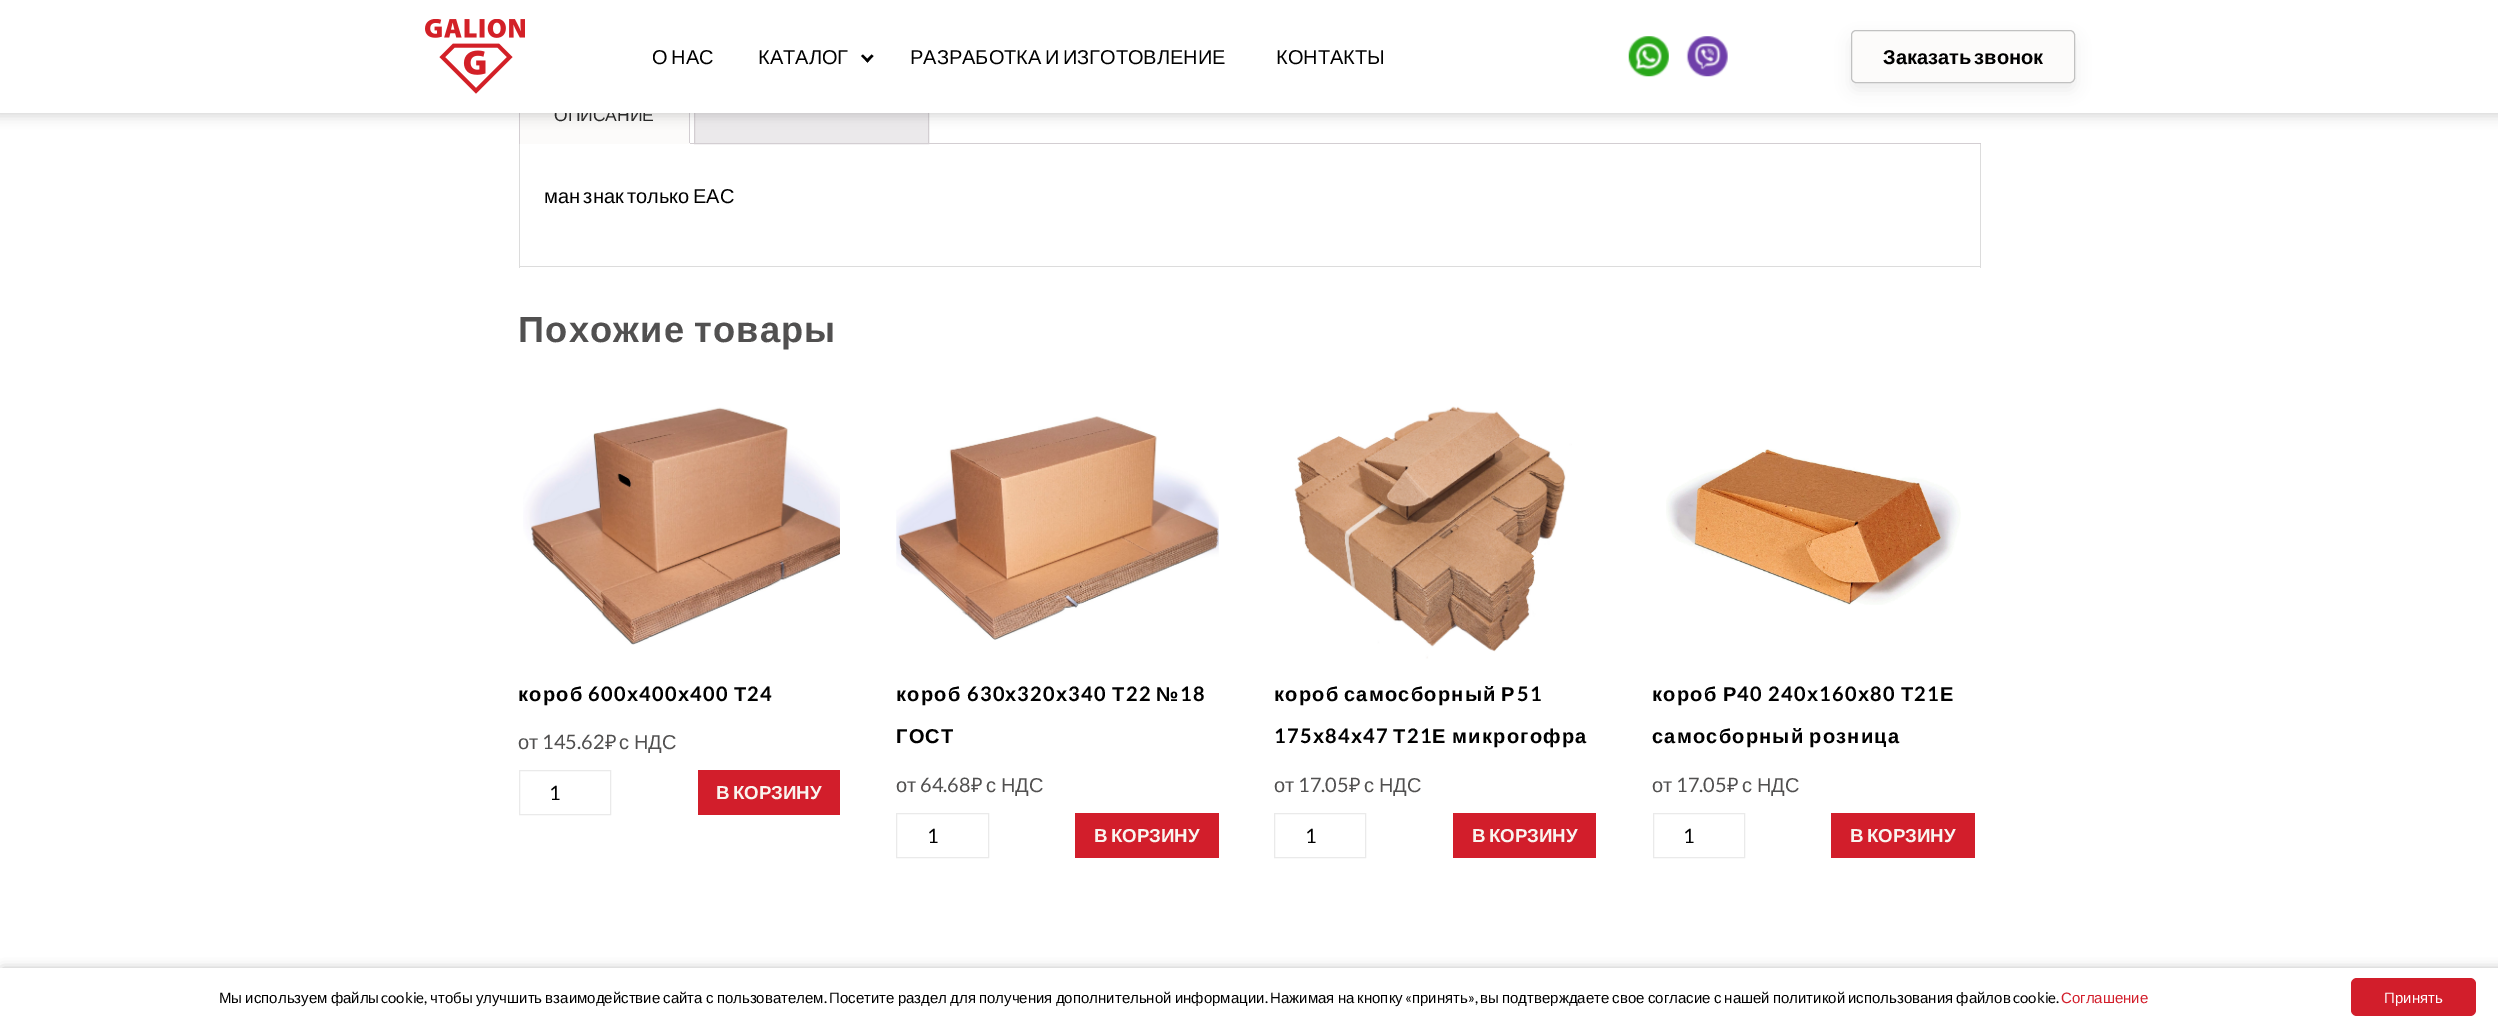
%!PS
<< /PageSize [2498 1026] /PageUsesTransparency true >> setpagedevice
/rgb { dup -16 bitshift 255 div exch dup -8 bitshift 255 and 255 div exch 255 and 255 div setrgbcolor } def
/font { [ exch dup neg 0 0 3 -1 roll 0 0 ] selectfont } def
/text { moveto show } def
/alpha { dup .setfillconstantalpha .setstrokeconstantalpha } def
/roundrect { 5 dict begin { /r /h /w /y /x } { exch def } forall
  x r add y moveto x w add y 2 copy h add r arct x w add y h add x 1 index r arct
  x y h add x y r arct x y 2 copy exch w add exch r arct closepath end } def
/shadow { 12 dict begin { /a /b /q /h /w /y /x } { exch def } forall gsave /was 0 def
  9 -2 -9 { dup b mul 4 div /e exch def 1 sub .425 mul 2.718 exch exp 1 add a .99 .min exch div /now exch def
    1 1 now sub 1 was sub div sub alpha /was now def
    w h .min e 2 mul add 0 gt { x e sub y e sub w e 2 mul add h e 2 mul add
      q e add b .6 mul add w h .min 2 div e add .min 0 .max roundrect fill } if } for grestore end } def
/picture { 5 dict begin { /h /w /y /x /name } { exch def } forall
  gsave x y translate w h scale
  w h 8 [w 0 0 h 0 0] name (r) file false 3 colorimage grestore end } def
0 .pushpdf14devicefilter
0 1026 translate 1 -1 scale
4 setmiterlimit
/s1 { /LiberationSans-Regular 17.5 font 16#282828 rgb } def
/s2 { /LiberationSans-Regular 20 font 16#000000 rgb } def
/s3 { /LiberationSans-Regular 20 font 16#515050 rgb } def
/s4 { /Lato-Regular 20 font 16#515050 rgb } def
/s5 { /NotoSans-Regular 20 font 16#515050 rgb } def
/s6 { /Lato-Regular 20 font 16#000000 rgb } def
/s7 { /Lato-Regular 15 font 16#000000 rgb } def
/s8 { /LiberationSans-Regular 15 font 16#000000 rgb } def
/s9 { /LiberationSans-Regular 15 font 16#D21E2B rgb } def
/s10 { /LiberationSans-Regular 15 font 16#FFFFFF rgb } def
16#FFFFFF rgb
0 0 2498 1026 rectfill
16#FCFBFA rgb
520 113 169 30 rectfill
16#D3CED2 rgb
689 113 1 31 rectfill
16#FCFBFA rgb
519 143 171 1 rectfill
16#D3CED2 rgb
519 113 1 31 rectfill
16#EBE9EB rgb
695 113 233 30 rectfill
16#D3CED2 rgb
694.5 85.5 234 58 rectstroke
16#333333 rgb
-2 -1 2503 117 0 6 0.2 shadow
s1
(ОПИСАНИЕ) 554 121 text
16#FFFFFF rgb
0 0 2498 113 rectfill
(pic1.raw) 425 19 100 75 picture
/LiberationSans-Regular 20 font
16#000000 rgb
652 64 moveto -2 0 32 (О НАС) widthshow
(КАТАЛОГ) 758 64 text
871.5 54.5 moveto 873.5 56 lineto 867.5 62.5 lineto 865.5 60.5 lineto closepath fill
863 54.5 moveto 869 60.5 lineto 867.5 62.5 lineto 861 56 lineto closepath fill
910 64 moveto -2 0 32 (РАЗРАБОТКА И ИЗГОТОВЛЕНИЕ) widthshow
(КОНТАКТЫ) 1276 64 text
(pic2.raw) 1628 36 41 41 picture
(pic3.raw) 1686 36 42 41 picture
16#B9B9B9 rgb
1851 38 224 52 5 7.5 0.25 shadow
16#FCFBFA rgb
1851.5 30.5 223 52 4.5 roundrect gsave fill grestore
16#C1C1C1 rgb
stroke
/LiberationSans-Bold 20 font
16#000000 rgb
1883 64 moveto -2 0 32 (Заказать звонок) widthshow
16#D3CED2 rgb
690 143 1291 1 rectfill
16#DCDCDC rgb
1980 144 1 124 rectfill
519 266 1462 1 rectfill
519 144 1 124 rectfill
/LiberationSans-Regular 20 font
16#000000 rgb
544 203 moveto -2 0 32 (ман знак только ЕАС) widthshow
/LiberationSans-Bold 36.25 font
16#515050 rgb
518 342 moveto -3 0 32 1.25 0 (Похожие товары) awidthshow
(pic4.raw) 523 407 317 238 picture
/LiberationSans-Bold 20 font
16#000000 rgb
518 701 moveto 1.25 0 (короб) ashow
/Lato-Bold 20 font
588 701 moveto 1.25 0 (600) ashow
/LiberationSans-Bold 20 font
627 701 moveto 1.25 0 (х) ashow
/Lato-Bold 20 font
639 701 moveto 1.25 0 (400) ashow
/LiberationSans-Bold 20 font
678 701 moveto 1.25 0 (х) ashow
/Lato-Bold 20 font
690 701 moveto 1.25 0 (400) ashow
/LiberationSans-Bold 20 font
734 701 moveto 1.25 0 (Т) ashow
/Lato-Bold 20 font
747 701 moveto 1.25 0 (24) ashow
s3
(от) 518 749 text
s4
(145.62) 542 749 text
s5
(₽) 605 749 text
/LiberationSans-Regular 20 font
619 749 moveto -1 0 32 (с НДС) widthshow
16#EAEAEA rgb
519.5 770.5 91 44 rectstroke
s6
(1) 549 800 text
16#D21E2B rgb
698 770 142 45 rectfill
/LiberationSans-Bold 18.75 font
16#F9F4EF rgb
716 799 moveto -2 0 32 (В КОРЗИНУ) widthshow
(pic5.raw) 896 416 323 224 picture
/LiberationSans-Bold 20 font
16#000000 rgb
896 701 moveto 1.25 0 (короб) ashow
/Lato-Bold 20 font
967 701 moveto 1.25 0 (630) ashow
/LiberationSans-Bold 20 font
1005 701 moveto 1.25 0 (х) ashow
/Lato-Bold 20 font
1017 701 moveto 1.25 0 (320) ashow
/LiberationSans-Bold 20 font
1056 701 moveto 1.25 0 (х) ashow
/Lato-Bold 20 font
1068 701 moveto 1.25 0 (340) ashow
/LiberationSans-Bold 20 font
1112 701 moveto 1.25 0 (Т) ashow
/Lato-Bold 20 font
1126 701 moveto 1.25 0 (22) ashow
/LiberationSans-Bold 20 font
1156 701 moveto 1.25 0 (№) ashow
/Lato-Bold 20 font
1180 701 moveto 1.25 0 (18) ashow
/LiberationSans-Bold 20 font
896 743 moveto 1.25 0 (ГОСТ) ashow
s3
(от) 896 792 text
s4
(64.68) 920 792 text
s5
(₽) 971 792 text
/LiberationSans-Regular 20 font
986 792 moveto -1 0 32 (с НДС) widthshow
16#EAEAEA rgb
896.5 813.5 92 44 rectstroke
s6
(1) 927 843 text
16#D21E2B rgb
1075 813 144 45 rectfill
/LiberationSans-Bold 18.75 font
16#F9F4EF rgb
1094 842 moveto -2 0 32 (В КОРЗИНУ) widthshow
(pic6.raw) 1294 406 278 253 picture
/LiberationSans-Bold 20 font
16#000000 rgb
1274 701 moveto -2 0 32 1.25 0 (короб самосборный Р) awidthshow
/Lato-Bold 20 font
1517 701 moveto 1.25 0 (51) ashow
1274 743 moveto 1.25 0 (175) ashow
/LiberationSans-Bold 20 font
1313 743 moveto 1.25 0 (х) ashow
/Lato-Bold 20 font
1325 743 moveto 1.25 0 (84) ashow
/LiberationSans-Bold 20 font
1351 743 moveto 1.25 0 (х) ashow
/Lato-Bold 20 font
1363 743 moveto 1.25 0 (47) ashow
/LiberationSans-Bold 20 font
1393 743 moveto 1.25 0 (Т) ashow
/Lato-Bold 20 font
1407 743 moveto 1.25 0 (21) ashow
/LiberationSans-Bold 20 font
1432 743 moveto -1 0 32 1.25 0 (Е микрогофра) awidthshow
s3
(от) 1274 792 text
s4
(17.05) 1298 792 text
s5
(₽) 1349 792 text
/LiberationSans-Regular 20 font
1364 792 moveto -1 0 32 (с НДС) widthshow
16#EAEAEA rgb
1274.5 813.5 91 44 rectstroke
s6
(1) 1305 843 text
16#D21E2B rgb
1453 813 143 45 rectfill
/LiberationSans-Bold 18.75 font
16#F9F4EF rgb
1472 842 moveto -2 0 32 (В КОРЗИНУ) widthshow
(pic7.raw) 1666 449 295 156 picture
/LiberationSans-Bold 20 font
16#000000 rgb
1652 701 moveto 1.25 0 (короб) ashow
1723 701 moveto 1.25 0 (Р) ashow
/Lato-Bold 20 font
1737 701 moveto 1.25 0 (40 240) ashow
/LiberationSans-Bold 20 font
1807 701 moveto 1.25 0 (х) ashow
/Lato-Bold 20 font
1819 701 moveto 1.25 0 (160) ashow
/LiberationSans-Bold 20 font
1858 701 moveto 1.25 0 (х) ashow
/Lato-Bold 20 font
1870 701 moveto 1.25 0 (80) ashow
/LiberationSans-Bold 20 font
1901 701 moveto 1.25 0 (Т) ashow
/Lato-Bold 20 font
1914 701 moveto 1.25 0 (21) ashow
/LiberationSans-Bold 20 font
1940 701 moveto 1.25 0 (Е) ashow
1652 743 moveto -2 0 32 1.25 0 (самосборный розница) awidthshow
s3
(от) 1652 792 text
s4
(17.05) 1676 792 text
s5
(₽) 1727 792 text
/LiberationSans-Regular 20 font
1742 792 moveto -1 0 32 (с НДС) widthshow
16#EAEAEA rgb
1653.5 813.5 91 44 rectstroke
s6
(1) 1683 843 text
16#D21E2B rgb
1831 813 144 45 rectfill
/LiberationSans-Bold 18.75 font
16#F9F4EF rgb
1850 842 moveto -2 0 32 (В КОРЗИНУ) widthshow
16#000000 rgb
3 971 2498 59 0 6 0.4 shadow
16#FFFFFF rgb
0 968 2498 58 rectfill
/LiberationSans-Regular 15 font
16#000000 rgb
219 1003 moveto -1 0 32 (Мы используем файлы) widthshow
s7
(cookie,) 381 1003 text
/LiberationSans-Regular 15 font
430 1003 moveto -1 0 32 (чтобы улучшить взаимодействие сайта с пользователем) widthshow
s7
(.) 824 1003 text
/LiberationSans-Regular 15 font
829 1003 moveto -1 0 32 (Посетите раздел для получения дополнительной информации) widthshow
s7
(.) 1265 1003 text
/LiberationSans-Regular 15 font
1270 1003 moveto -1 0 32 (Нажимая на кнопку) widthshow
s7
(«) 1405 1003 text
s8
(принять) 1412 1003 text
s7
(»,) 1468 1003 text
/LiberationSans-Regular 15 font
1480 1003 moveto -1 0 32 (вы подтверждаете свое согласие с нашей политикой использования файлов) widthshow
s7
(cookie.) 2013 1003 text
s9
(Соглашение) 2061 1003 text
2351 978 125 38 6 roundrect fill
s10
(Принять) 2384 1003 text
.poppdf14devicefilter showpage
